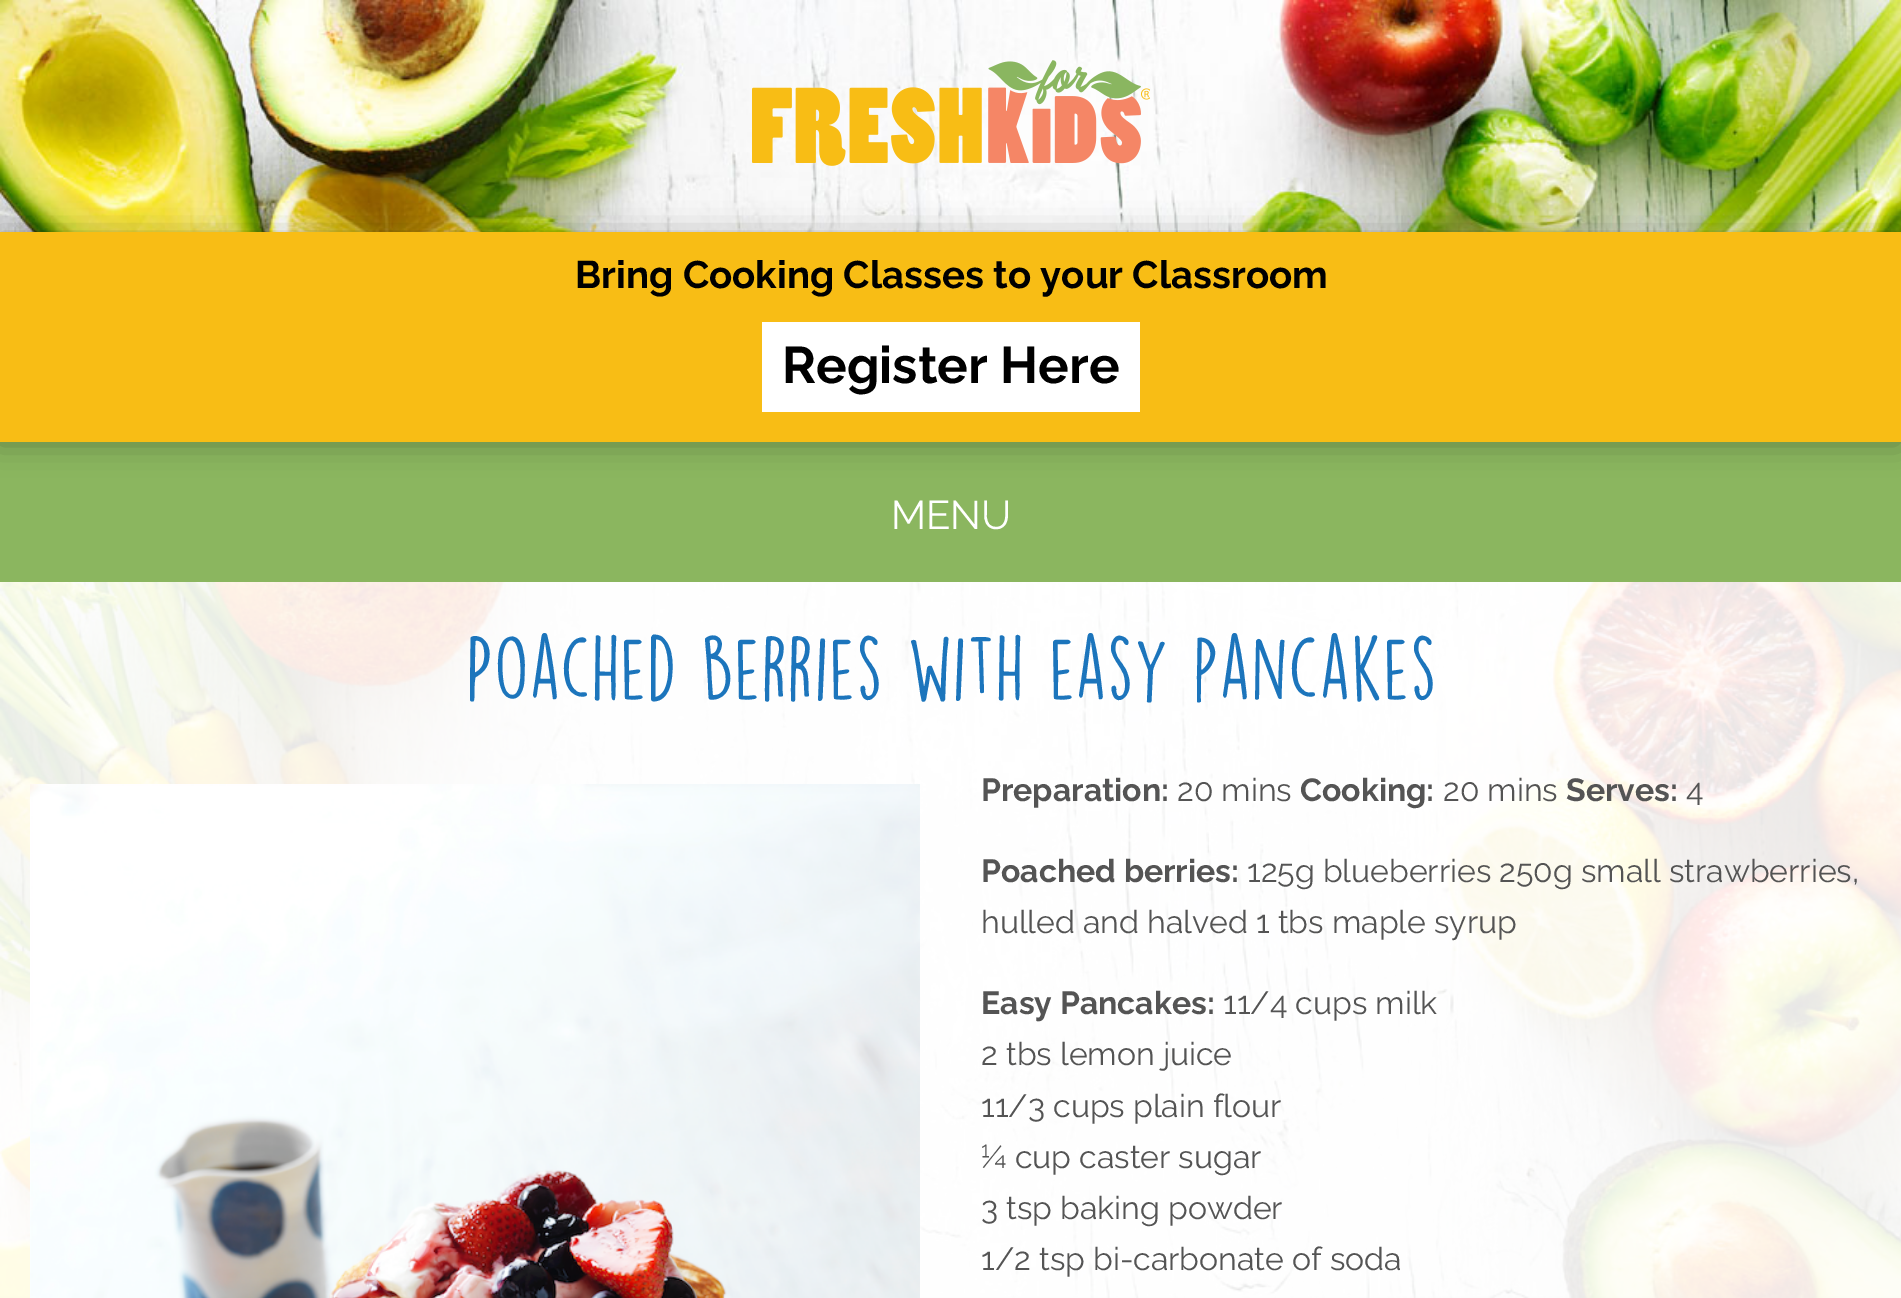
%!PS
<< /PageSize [1901 1298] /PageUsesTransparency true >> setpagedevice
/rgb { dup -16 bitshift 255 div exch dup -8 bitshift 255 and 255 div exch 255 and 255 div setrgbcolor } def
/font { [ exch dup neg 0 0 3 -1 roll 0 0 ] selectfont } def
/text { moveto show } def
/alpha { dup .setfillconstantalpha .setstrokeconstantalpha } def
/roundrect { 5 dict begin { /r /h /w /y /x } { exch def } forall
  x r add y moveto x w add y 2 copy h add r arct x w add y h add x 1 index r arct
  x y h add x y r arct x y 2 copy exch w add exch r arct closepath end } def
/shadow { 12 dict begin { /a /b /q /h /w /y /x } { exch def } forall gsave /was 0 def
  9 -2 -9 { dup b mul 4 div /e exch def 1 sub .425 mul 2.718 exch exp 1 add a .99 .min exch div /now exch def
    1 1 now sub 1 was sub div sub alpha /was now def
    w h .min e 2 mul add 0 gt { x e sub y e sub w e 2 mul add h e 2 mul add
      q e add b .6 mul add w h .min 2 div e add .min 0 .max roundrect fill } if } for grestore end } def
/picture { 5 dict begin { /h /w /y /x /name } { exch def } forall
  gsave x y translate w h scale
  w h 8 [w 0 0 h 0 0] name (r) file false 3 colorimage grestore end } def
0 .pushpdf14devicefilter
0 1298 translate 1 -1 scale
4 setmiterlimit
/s1 { /Raleway-Bold 38.4 font 16#000000 rgb } def
/s2 { /Raleway-Bold 51.25 font 16#000000 rgb } def
/s3 { /Raleway-Regular 40 font 16#FFFFFF rgb } def
/s4 { /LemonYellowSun-Regular 80 font 16#1C75BC rgb } def
/s5 { /Raleway-Bold 32 font 16#545454 rgb } def
/s6 { /Raleway-Regular 32 font 16#545454 rgb } def
16#FFFFFF rgb
0 0 1901 1298 rectfill
(pic1.raw) 0 0 1901 1298 picture
(pic2.raw) 752 60 398 106 picture
16#8BB65F rgb
0 442 1901 140 rectfill
16#000000 rgb
-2 234 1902 210 0 15 0.3 shadow
16#F8BD15 rgb
0 232 1901 210 rectfill
s1
(Bring Cooking Classes to your Classroom) 575 288 text
16#FFFFFF rgb
762 322 378 90 rectfill
s2
(Register Here) 782 383 text
s3
(MENU) 891 529 text
(pic4.raw) 935 644 34 19 picture
0.9 alpha
0 582 1901 716 rectfill
1 alpha
s4
(Poached berries with easy pancakes) 466 701 text
(pic3.raw) 30 784 890 514 picture
s5
(Preparation:) 981 801 text
s6
(20 mins) 1177 801 text
s5
(Cooking:) 1300 801 text
s6
(20 mins) 1443 801 text
s5
(Serves:) 1566 801 text
s6
(4) 1686 801 text
s5
(Poached berries:) 981 882 text
s6
(125g blueberries 250g small strawberries,) 1247 882 text
(hulled and halved 1 tbs maple syrup) 981 933 text
s5
(Easy Pancakes:) 981 1014 text
s6
(11/4 cups milk) 1223 1014 text
(2 tbs lemon juice) 981 1065 text
(11/3 cups plain flour) 981 1117 text
(¼ cup caster sugar) 981 1168 text
(3 tsp baking powder) 981 1219 text
(1/2 tsp bi-carbonate of soda) 981 1270 text
.poppdf14devicefilter showpage
